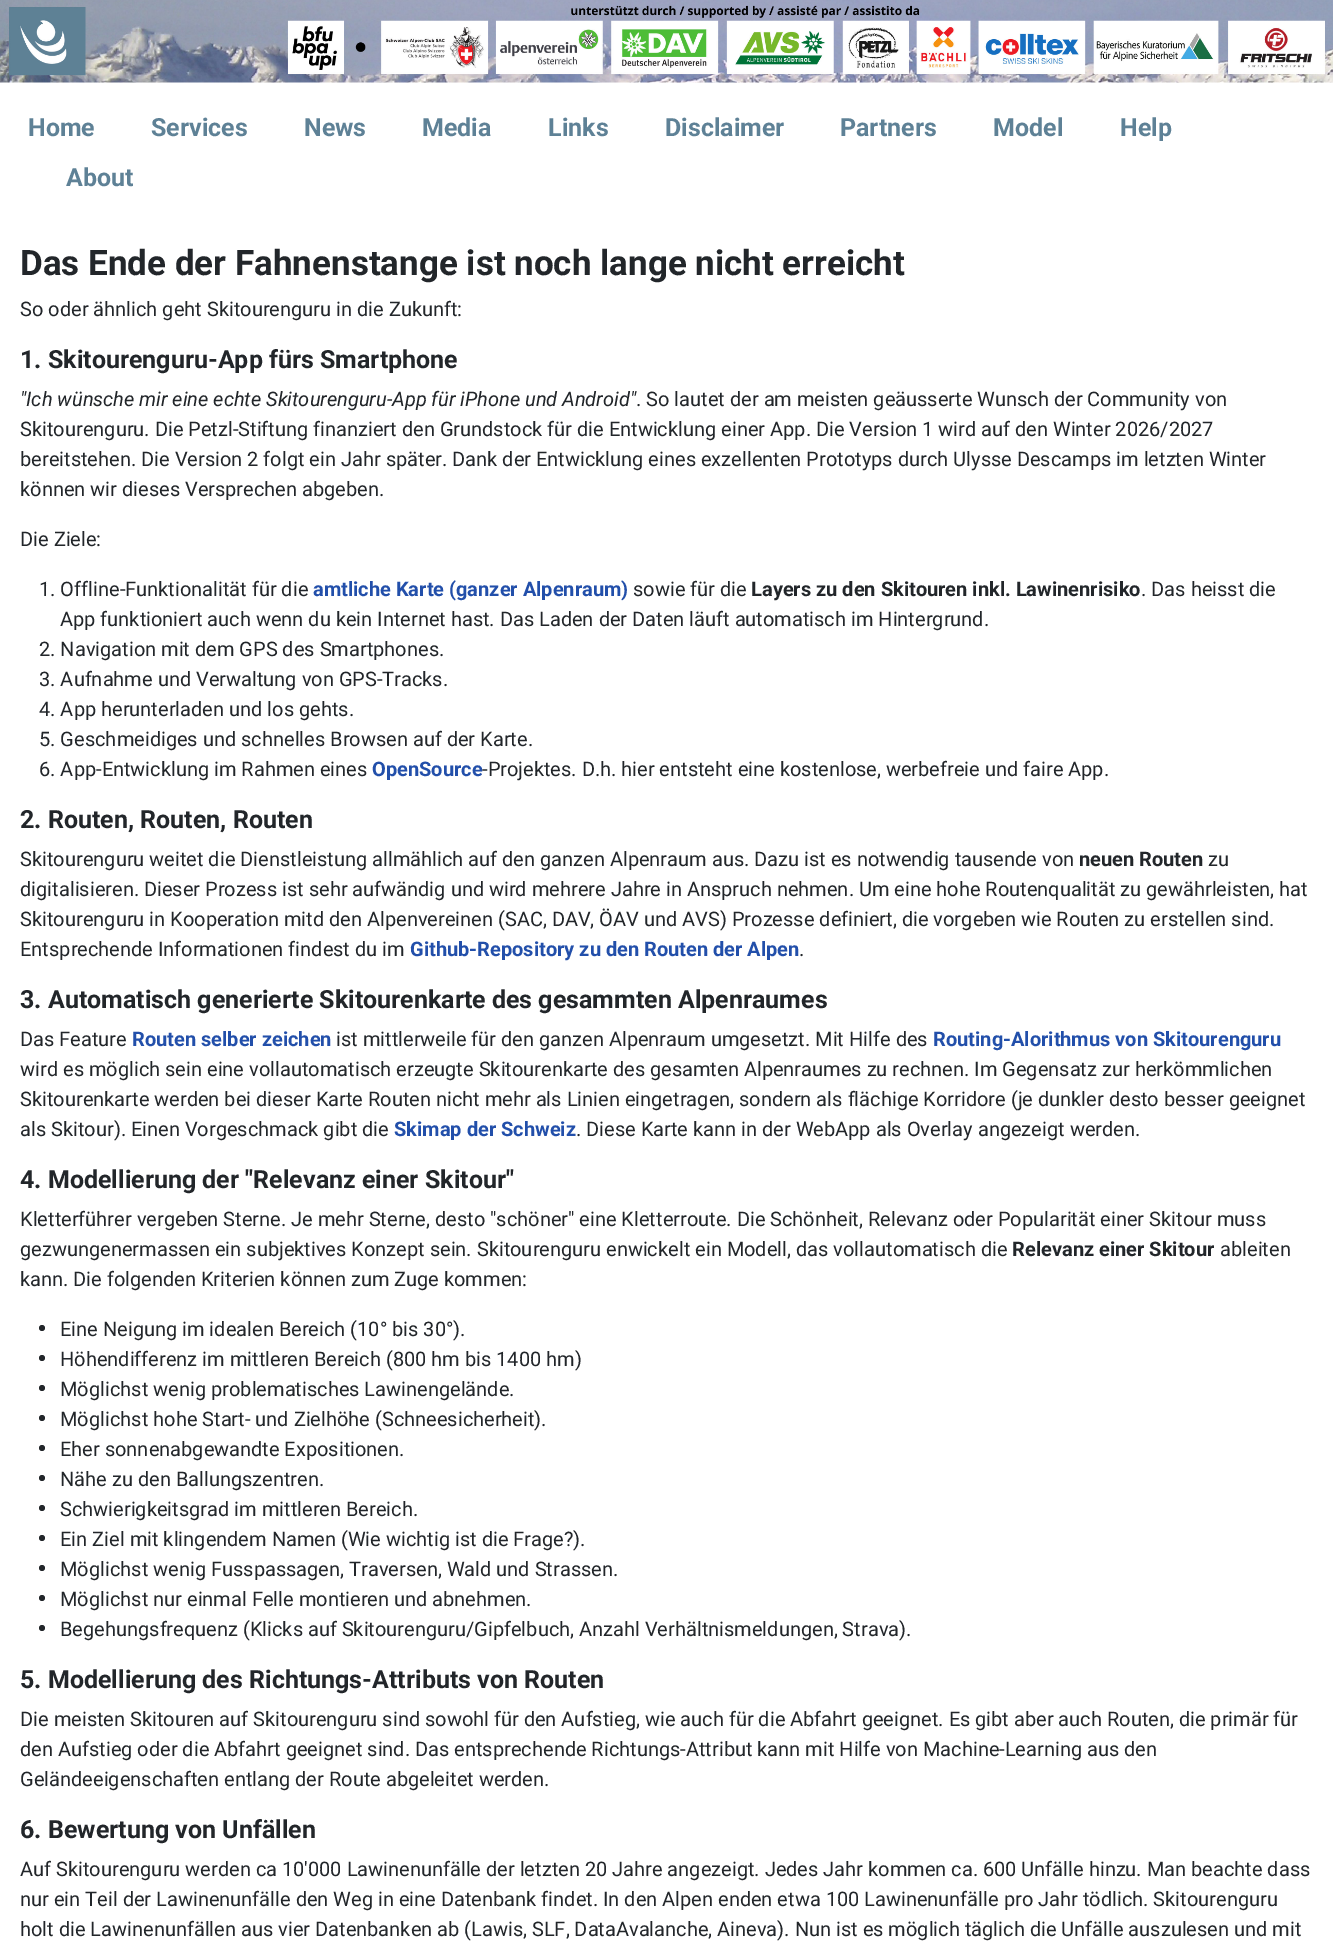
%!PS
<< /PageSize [1333 1947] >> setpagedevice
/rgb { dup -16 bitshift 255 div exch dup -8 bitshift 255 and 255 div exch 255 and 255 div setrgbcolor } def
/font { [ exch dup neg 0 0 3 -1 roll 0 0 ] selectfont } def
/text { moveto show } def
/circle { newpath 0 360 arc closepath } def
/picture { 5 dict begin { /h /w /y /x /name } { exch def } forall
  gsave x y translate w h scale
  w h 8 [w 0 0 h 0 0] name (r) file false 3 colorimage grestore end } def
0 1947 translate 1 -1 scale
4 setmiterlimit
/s1 { /Roboto-Bold 25 font 16#5E8196 rgb } def
/s2 { /Roboto-Bold 35 font 16#22262A rgb } def
/s3 { /Roboto-Regular 20 font 16#22262A rgb } def
/s4 { /Roboto-Bold 25 font 16#22262A rgb } def
/s5 { /Roboto-Italic 20 font 16#22262A rgb } def
/s6 { /Roboto-Bold 20 font 16#224FAA rgb } def
/s7 { /Roboto-Bold 20 font 16#22262A rgb } def
16#FFFFFF rgb
0 0 1333 1947 rectfill
(pic1.raw) 0 0 1333 83 picture
s1
(Home) 28 136 text
(Services) 151 136 text
(News) 304 136 text
(Media) 422 136 text
(Links) 548 136 text
(Disclaimer) 665 136 text
(Partners) 840 136 text
(Model) 993 136 text
(Help) 1120 136 text
(About) 66 186 text
s2
(Das Ende der Fahnenstange ist noch lange nicht erreicht) 20 275 text
s3
(So oder ähnlich geht Skitourenguru in die Zukunft:) 20 316 text
s4
(1. Skitourenguru-App fürs Smartphone) 20 368 text
s5
("Ich wünsche mir eine echte Skitourenguru-App für iPhone und Android") 20 406 text
s3
(. So lautet der am meisten geäusserte Wunsch der Community von) 636 406 text
(Skitourenguru. Die Petzl-Stiftung finanziert den Grundstock für die Entwicklung einer App. Die Version 1 wird auf den Winter 2026/2027) 20 436 text
(bereitstehen. Die Version 2 folgt ein Jahr später. Dank der Entwicklung eines exzellenten Prototyps durch Ulysse Descamps im letzten Winter) 20 466 text
(können wir dieses Versprechen abgeben.) 20 496 text
(Die Ziele:) 20 546 text
(1. Offline-Funktionalität für die) 39 596 text
s6
(amtliche Karte \(ganzer Alpenraum\)) 313 596 text
s3
(sowie für die) 633 596 text
s7
(Layers zu den Skitouren inkl. Lawinenrisiko) 751 596 text
s3
(. Das heisst die) 1141 596 text
(App funktioniert auch wenn du kein Internet hast. Das Laden der Daten läuft automatisch im Hintergrund.) 60 626 text
(2. Navigation mit dem GPS des Smartphones.) 39 656 text
(3. Aufnahme und Verwaltung von GPS-Tracks.) 39 686 text
(4. App herunterladen und los gehts.) 39 716 text
(5. Geschmeidiges und schnelles Browsen auf der Karte.) 39 746 text
(6. App-Entwicklung im Rahmen eines) 39 776 text
s6
(OpenSource) 372 776 text
s3
(-Projektes. D.h. hier entsteht eine kostenlose, werbefreie und faire App.) 482 776 text
s4
(2. Routen, Routen, Routen) 20 828 text
s3
(Skitourenguru weitet die Dienstleistung allmählich auf den ganzen Alpenraum aus. Dazu ist es notwendig tausende von) 20 866 text
s7
(neuen Routen) 1079 866 text
s3
(zu) 1208 866 text
(digitalisieren. Dieser Prozess ist sehr aufwändig und wird mehrere Jahre in Anspruch nehmen. Um eine hohe Routenqualität zu gewährleisten, hat) 20 896 text
(Skitourenguru in Kooperation mitd den Alpenvereinen \(SAC, DAV, ÖAV und AVS\) Prozesse definiert, die vorgeben wie Routen zu erstellen sind.) 20 926 text
(Entsprechende Informationen findest du im) 20 956 text
s6
(Github-Repository zu den Routen der Alpen) 410 956 text
s3
(.) 799 956 text
s4
(3. Automatisch generierte Skitourenkarte des gesammten Alpenraumes) 20 1008 text
s3
(Das Feature) 20 1046 text
s6
(Routen selber zeichen) 132 1046 text
s3
(ist mittlerweile für den ganzen Alpenraum umgesetzt. Mit Hilfe des) 336 1046 text
s6
(Routing-Alorithmus von Skitourenguru) 933 1046 text
s3
(wird es möglich sein eine vollautomatisch erzeugte Skitourenkarte des gesamten Alpenraumes zu rechnen. Im Gegensatz zur herkömmlichen) 20 1076 text
(Skitourenkarte werden bei dieser Karte Routen nicht mehr als Linien eingetragen, sondern als flächige Korridore \(je dunkler desto besser geeignet) 20 1106 text
(als Skitour\). Einen Vorgeschmack gibt die) 20 1136 text
s6
(Skimap der Schweiz) 394 1136 text
s3
(. Diese Karte kann in der WebApp als Overlay angezeigt werden.) 576 1136 text
s4
(4. Modellierung der "Relevanz einer Skitour") 20 1188 text
s3
(Kletterführer vergeben Sterne. Je mehr Sterne, desto "schöner" eine Kletterroute. Die Schönheit, Relevanz oder Popularität einer Skitour muss) 20 1226 text
(gezwungenermassen ein subjektives Konzept sein. Skitourenguru enwickelt ein Modell, das vollautomatisch die) 20 1256 text
s7
(Relevanz einer Skitour) 1012 1256 text
s3
(ableiten) 1220 1256 text
(kann. Die folgenden Kriterien können zum Zuge kommen:) 20 1286 text
42 1328 3 circle fill
(Eine Neigung im idealen Bereich \(10° bis 30°\).) 60 1336 text
42 1358 3 circle fill
(Höhendifferenz im mittleren Bereich \(800 hm bis 1400 hm\)) 60 1366 text
42 1388 3 circle fill
(Möglichst wenig problematisches Lawinengelände.) 60 1396 text
42 1418 3 circle fill
(Möglichst hohe Start- und Zielhöhe \(Schneesicherheit\).) 60 1426 text
42 1448 3 circle fill
(Eher sonnenabgewandte Expositionen.) 60 1456 text
42 1478 3 circle fill
(Nähe zu den Ballungszentren.) 60 1486 text
42 1508 3 circle fill
(Schwierigkeitsgrad im mittleren Bereich.) 60 1516 text
42 1538 3 circle fill
(Ein Ziel mit klingendem Namen \(Wie wichtig ist die Frage?\).) 60 1546 text
42 1568 3 circle fill
(Möglichst wenig Fusspassagen, Traversen, Wald und Strassen.) 60 1576 text
42 1598 3 circle fill
(Möglichst nur einmal Felle montieren und abnehmen.) 60 1606 text
42 1628 3 circle fill
(Begehungsfrequenz \(Klicks auf Skitourenguru/Gipfelbuch, Anzahl Verhältnismeldungen, Strava\).) 60 1636 text
s4
(5. Modellierung des Richtungs-Attributs von Routen) 20 1688 text
s3
(Die meisten Skitouren auf Skitourenguru sind sowohl für den Aufstieg, wie auch für die Abfahrt geeignet. Es gibt aber auch Routen, die primär für) 20 1726 text
(den Aufstieg oder die Abfahrt geeignet sind. Das entsprechende Richtungs-Attribut kann mit Hilfe von Machine-Learning aus den) 20 1756 text
(Geländeeigenschaften entlang der Route abgeleitet werden.) 20 1786 text
s4
(6. Bewertung von Unfällen) 20 1838 text
s3
(Auf Skitourenguru werden ca 10'000 Lawinenunfälle der letzten 20 Jahre angezeigt. Jedes Jahr kommen ca. 600 Unfälle hinzu. Man beachte dass) 20 1876 text
(nur ein Teil der Lawinenunfälle den Weg in eine Datenbank findet. In den Alpen enden etwa 100 Lawinenunfälle pro Jahr tödlich. Skitourenguru) 20 1906 text
(holt die Lawinenunfällen aus vier Datenbanken ab \(Lawis, SLF, DataAvalanche, Aineva\). Nun ist es möglich täglich die Unfälle auszulesen und mit) 20 1936 text
showpage
